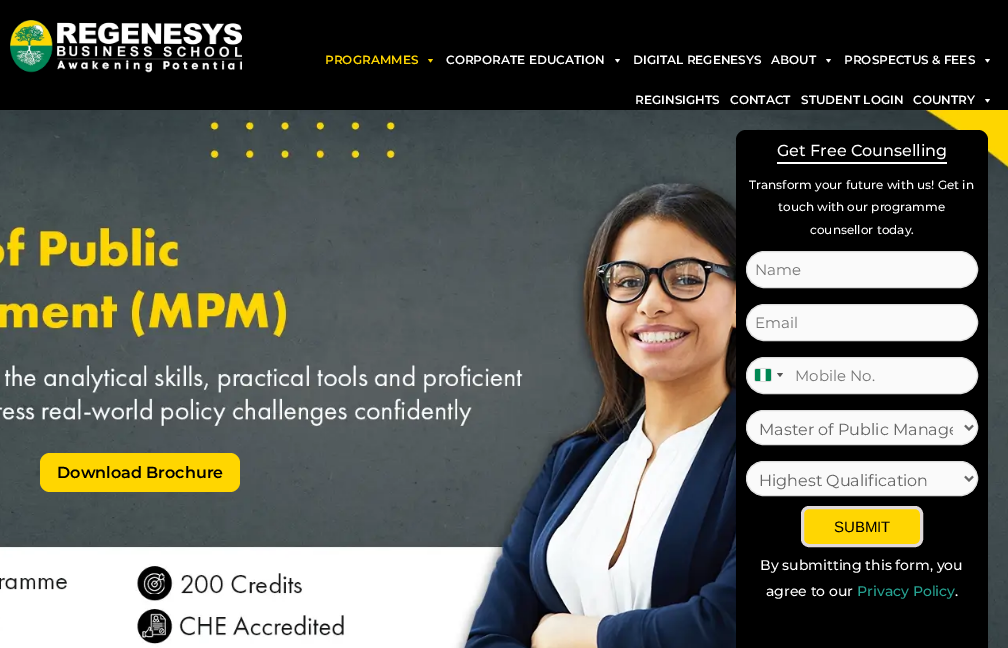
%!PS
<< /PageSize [1008 648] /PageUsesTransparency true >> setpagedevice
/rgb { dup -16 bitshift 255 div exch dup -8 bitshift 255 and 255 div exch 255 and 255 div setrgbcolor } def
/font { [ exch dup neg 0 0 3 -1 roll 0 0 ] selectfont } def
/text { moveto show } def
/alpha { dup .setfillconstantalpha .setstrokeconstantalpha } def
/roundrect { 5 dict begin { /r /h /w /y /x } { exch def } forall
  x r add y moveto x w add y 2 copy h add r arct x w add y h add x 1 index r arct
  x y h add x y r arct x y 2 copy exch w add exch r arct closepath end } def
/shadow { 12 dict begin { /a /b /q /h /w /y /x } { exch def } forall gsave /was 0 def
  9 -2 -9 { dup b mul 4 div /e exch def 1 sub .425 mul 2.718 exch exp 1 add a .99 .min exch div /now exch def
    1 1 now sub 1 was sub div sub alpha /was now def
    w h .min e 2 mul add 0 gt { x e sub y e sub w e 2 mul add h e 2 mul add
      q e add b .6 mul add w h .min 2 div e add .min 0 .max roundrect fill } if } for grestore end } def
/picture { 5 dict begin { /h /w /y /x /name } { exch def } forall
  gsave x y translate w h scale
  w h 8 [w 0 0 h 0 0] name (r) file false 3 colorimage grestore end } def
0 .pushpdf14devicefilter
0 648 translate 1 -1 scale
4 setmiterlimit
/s1 { /Montserrat-SemiBold 12 font 16#FFD602 rgb } def
/s2 { /Montserrat-SemiBold 12 font 16#FFFFFF rgb } def
/s3 { /Montserrat-SemiBold 16 font 16#000000 rgb } def
/s4 { /Montserrat-Medium 16 font 16#FFFFFF rgb } def
/s5 { /Montserrat-Medium 12 font 16#FFFFFF rgb } def
/s6 { /Montserrat-Regular 15 font 16#757575 rgb } def
/s7 { /Montserrat-Regular 16 font 16#666666 rgb } def
/s8 { /LiberationSans-Regular 15 font 16#000000 rgb } def
/s9 { /Montserrat-Medium 14 font 16#FFFFFF rgb } def
/s10 { /Montserrat-Medium 14 font 16#26A392 rgb } def
16#FFFFFF rgb
0 0 1008 648 rectfill
16#000000 rgb
0 0 1008 110 rectfill
(pic1.raw) 10 20 232 53 picture
s1
(PROGRAMMES) 325 64 text
433 59 moveto 430.5 62.5 lineto 428 59 lineto closepath fill
s2
(CORPORATE EDUCATION) 446 64 text
620 59 moveto 617.5 62.5 lineto 615 59 lineto closepath fill
(DIGITAL REGENESYS) 633 64 text
(ABOUT) 771 64 text
831 59 moveto 828.5 62.5 lineto 826 59 lineto closepath fill
(PROSPECTUS & FEES) 844 64 text
990 59 moveto 987.5 62.5 lineto 985 59 lineto closepath fill
(REGINSIGHTS) 635 104 text
(CONTACT) 730 104 text
(STUDENT LOGIN) 801 104 text
(COUNTRY) 913 104 text
990 99 moveto 987.5 102.5 lineto 985 99 lineto closepath fill
(pic2.raw) 0 110 1008 538 picture
16#FFD600 rgb
40 453 200 39 10 roundrect fill
s3
(Download Brochure) 57 478 text
736 130 252 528 10 roundrect fill
16#FFFFFF rgb
777 162 170 2 rectfill
s4
(Get Free Counselling) 777 156 text
s5
(Transform your future with us! Get in) 749 189 text
(touch with our programme) 778 211 text
(counsellor today.) 810 234 text
16#FAFAFA rgb
746.5 251.5 231 36 18 roundrect gsave fill grestore
16#DDDDDD rgb
stroke
s6
(Name) 755 275 text
16#FAFAFA rgb
746.5 304.5 231 36 18 roundrect gsave fill grestore
16#DDDDDD rgb
stroke
s6
(Email) 755 328 text
16#FAFAFA rgb
746.5 357.5 231 36 18 roundrect gsave fill grestore
16#DDDDDD rgb
stroke
16#888888 rgb
755 369 16 12 1 0.5 1 shadow
(pic3.raw) 755 369 16 12 picture
16#555555 rgb
777 373 moveto 783 373 lineto 780 377 lineto closepath fill
s6
(Mobile No.) 795 381 text
16#FAFAFA rgb
746.5 410.5 231 34 17 roundrect gsave fill grestore
16#DDDDDD rgb
stroke
16#666666 rgb
2 setlinewidth
965 425.5 moveto 969 429.5 lineto 973 425.5 lineto stroke
gsave
759 419 194 21 rectclip
s7
(Master of Public Manage) 759 435 text
grestore
16#FAFAFA rgb
746.5 461.5 231 34 17 roundrect gsave fill grestore
16#DDDDDD rgb
1 setlinewidth
stroke
16#666666 rgb
2 setlinewidth
965 476.5 moveto 969 480.5 lineto 973 476.5 lineto stroke
s7
(Highest Qualification) 759 486 text
16#FFD602 rgb
802.5 507.5 119 38 6.5 roundrect gsave fill grestore
16#E0D9D9 rgb
3 setlinewidth
stroke
s8
(SUBMIT) 834 532 text
s9
(By submitting this form, you) 760 570 text
(agree to our) 766 596 text
s10
(Privacy Policy) 857 596 text
s9
(.) 955 596 text
.poppdf14devicefilter showpage
